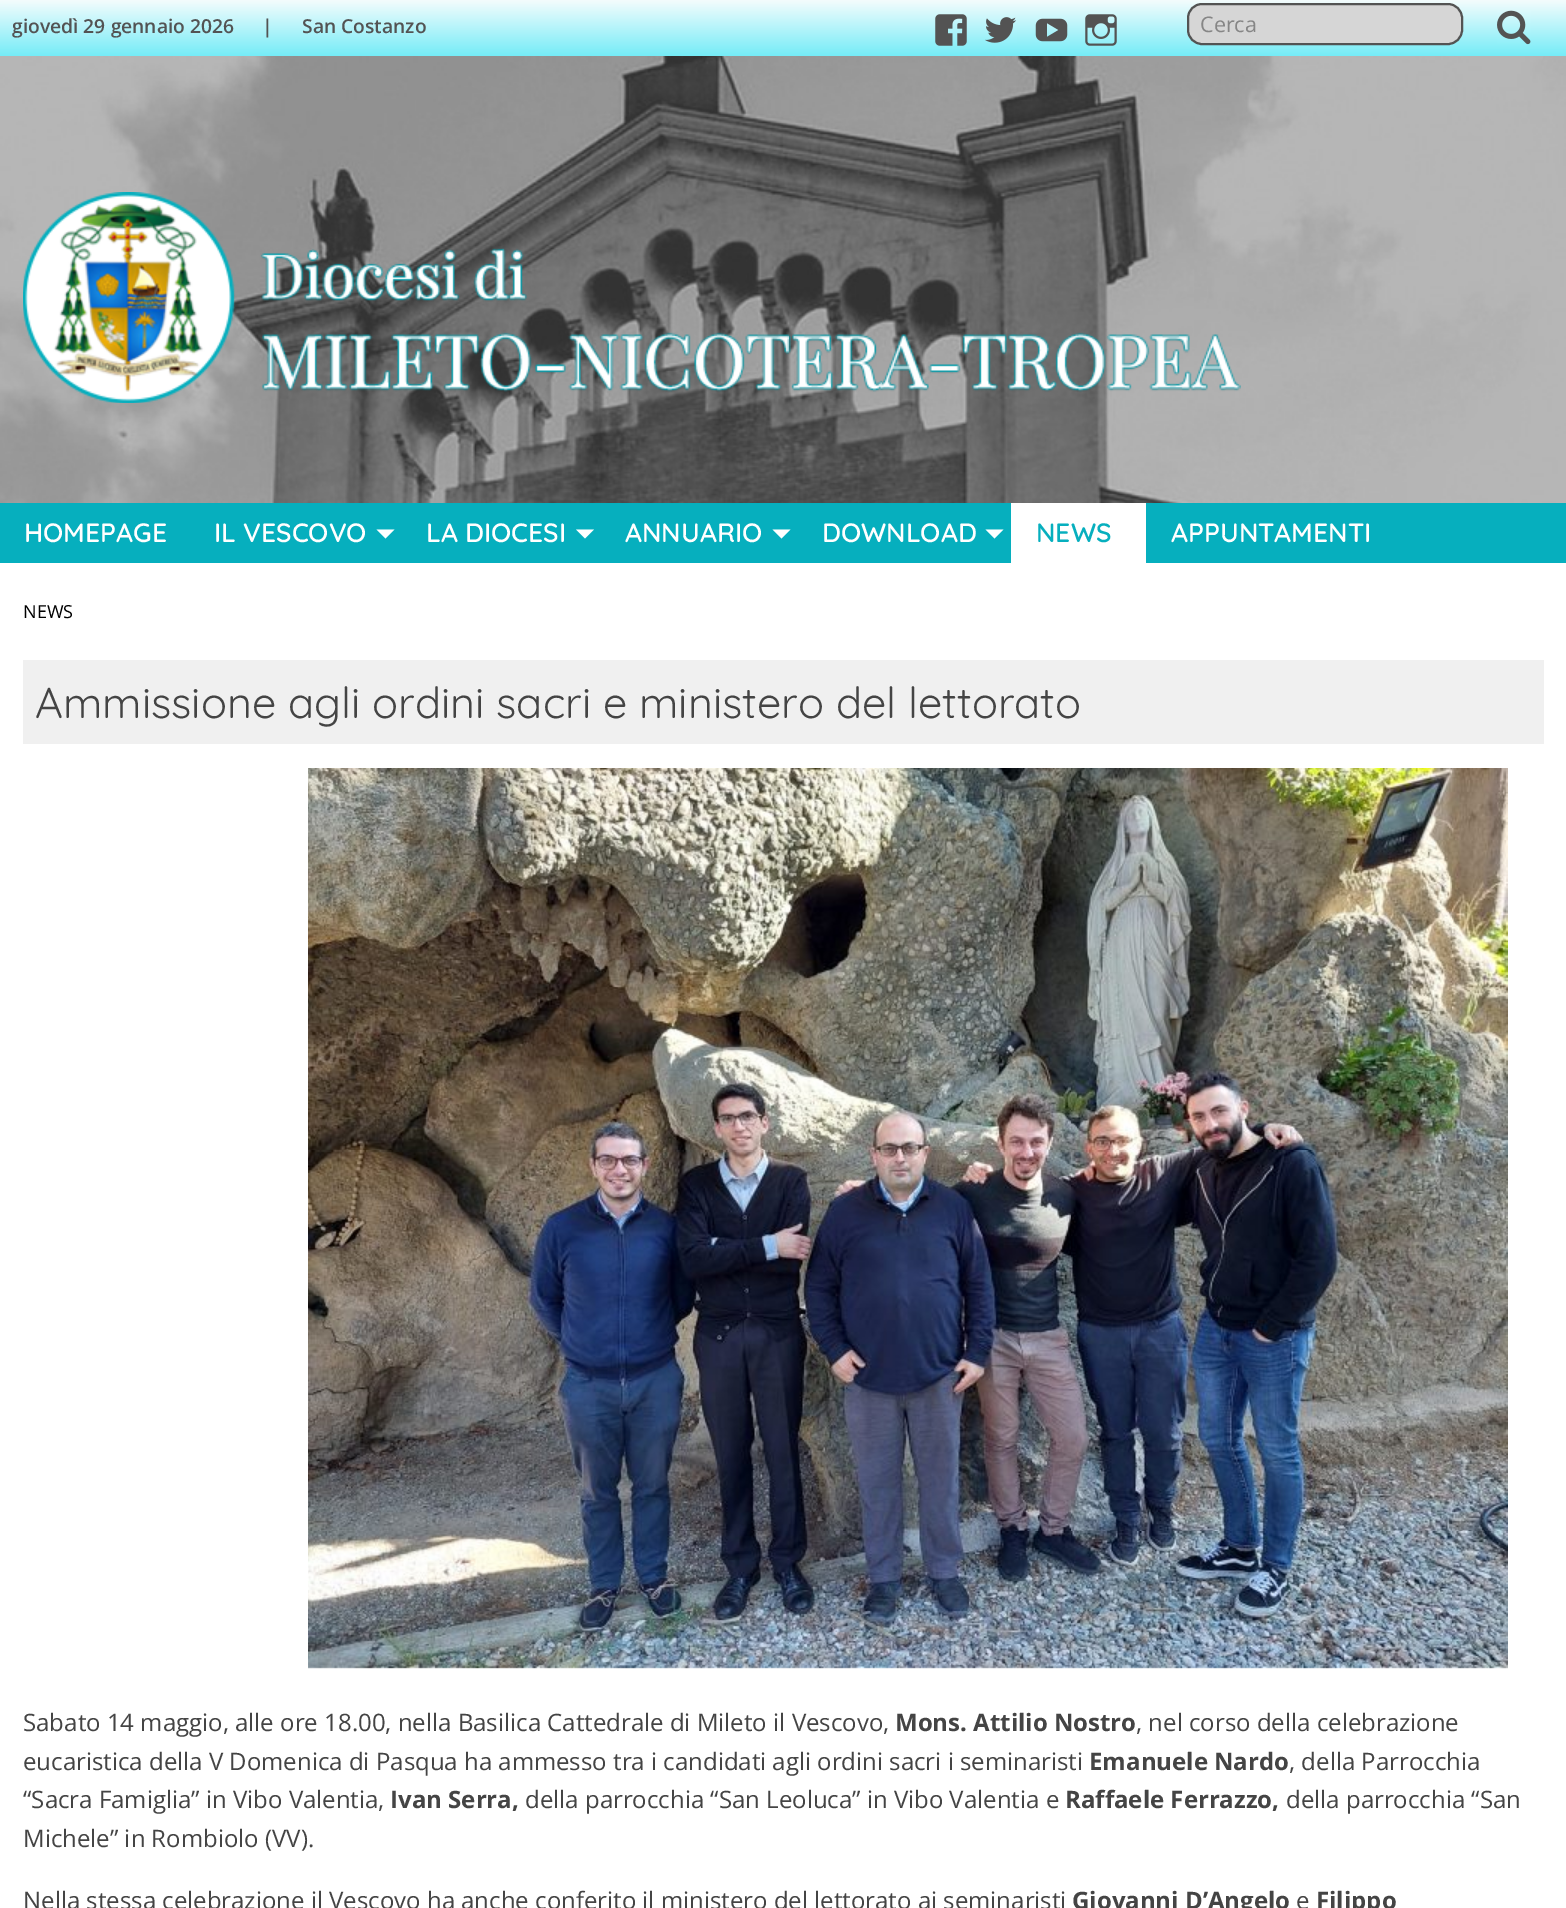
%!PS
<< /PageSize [1566 1908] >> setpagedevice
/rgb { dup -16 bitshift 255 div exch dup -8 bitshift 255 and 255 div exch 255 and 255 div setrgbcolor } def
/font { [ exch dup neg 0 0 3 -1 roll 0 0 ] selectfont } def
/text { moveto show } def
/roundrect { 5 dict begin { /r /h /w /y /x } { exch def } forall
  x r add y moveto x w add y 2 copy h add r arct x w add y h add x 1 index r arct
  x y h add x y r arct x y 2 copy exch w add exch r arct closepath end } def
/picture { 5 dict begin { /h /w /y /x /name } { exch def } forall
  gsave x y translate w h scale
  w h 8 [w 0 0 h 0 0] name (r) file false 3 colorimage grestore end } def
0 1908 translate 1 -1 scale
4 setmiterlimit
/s1 { /OpenSans-SemiBold 19.25 font 16#535353 rgb } def
/s2 { /OpenSans-Regular 21.5 font 16#868686 rgb } def
/s3 { /Quicksand-SemiBold 26.5 font 16#FFFFFF rgb } def
/s4 { /Quicksand-SemiBold 26.5 font 16#06AFBE rgb } def
/s5 { /OpenSans-Regular 18 font 16#000000 rgb } def
/s6 { /Quicksand-Regular 43.2 font 16#444444 rgb } def
/s7 { /OpenSans-Regular 24 font 16#444444 rgb } def
/s8 { /OpenSans-Bold 24 font 16#444444 rgb } def
16#FFFFFF rgb
0 0 1566 1908 rectfill
(pic1.raw) 0 56 1566 447 picture
gsave 0 0 moveto 1566 0 lineto 1566 56 lineto 0 56 lineto closepath clip newpath
<< /ShadingType 2 /ColorSpace /DeviceRGB /Coords [783 0 783 56] /Extend [true true] /Function << /FunctionType 2 /Domain [0 1] /C0 [0.957 0.988 0.992] /C1 [0.459 0.925 0.969] /N 1 >> >> shfill grestore
s1
(giovedì 29 gennaio 2026) 12 33 text
(|) 262 33 text
(San Costanzo) 302 33 text
(pic2.raw) 935 14 32 32 picture
(pic3.raw) 985 17 32 26 picture
(pic4.raw) 1035 18 33 24 picture
(pic5.raw) 1085 14 32 32 picture
16#D6D6D6 rgb
1188 4 274 40 14 roundrect gsave fill grestore
16#535353 rgb
2 setlinewidth
stroke
s2
(Cerca) 1200 32 text
(pic6.raw) 1497 10 34 35 picture
(pic7.raw) 23 192 1218 211 picture
16#06AFBE rgb
0 503 1566 60 rectfill
s3
(HOMEPAGE) 24 542 text
(IL VESCOVO) 214 542 text
376.5 529.5 moveto 394.5 529.5 lineto 385.5 538.5 lineto closepath fill
(LA DIOCESI) 426 542 text
576 529.5 moveto 594 529.5 lineto 585 538.5 lineto closepath fill
(ANNUARIO) 625 542 text
772.5 529.5 moveto 790.5 529.5 lineto 781.5 538.5 lineto closepath fill
(DOWNLOAD) 822 542 text
985.5 529.5 moveto 1003.5 529.5 lineto 994.5 538.5 lineto closepath fill
1011 503 135 60 rectfill
s4
(NEWS) 1036 542 text
s3
(APPUNTAMENTI) 1171 542 text
s5
(NEWS) 23 618 text
16#F0F0F0 rgb
23 660 1521 84 rectfill
s6
(Ammissione agli ordini sacri e ministero del lettorato) 35 718 text
(pic8.raw) 308 768 1200 901 picture
s7
(Sabato 14 maggio, alle ore 18.00, nella Basilica Cattedrale di Mileto il Vescovo,) 23 1731 text
s8
(Mons. Attilio Nostro) 895 1731 text
s7
(, nel corso della celebrazione) 1136 1731 text
(eucaristica della V Domenica di Pasqua ha ammesso tra i candidati agli ordini sacri i seminaristi) 23 1770 text
s8
(Emanuele Nardo) 1089 1770 text
s7
(, della Parrocchia) 1289 1770 text
(“Sacra Famiglia” in Vibo Valentia,) 23 1808 text
s8
(Ivan Serra,) 390 1808 text
s7
(della parrocchia “San Leoluca” in Vibo Valentia e) 525 1808 text
s8
(Raffaele Ferrazzo,) 1065 1808 text
s7
(della parrocchia “San) 1286 1808 text
(Michele” in Rombiolo \(VV\).) 23 1847 text
(Nella stessa celebrazione il Vescovo ha anche conferito il ministero del lettorato ai seminaristi) 23 1909 text
s8
(Giovanni D’Angelo) 1072 1909 text
s7
(e) 1296 1909 text
s8
(Filippo) 1316 1909 text
showpage
